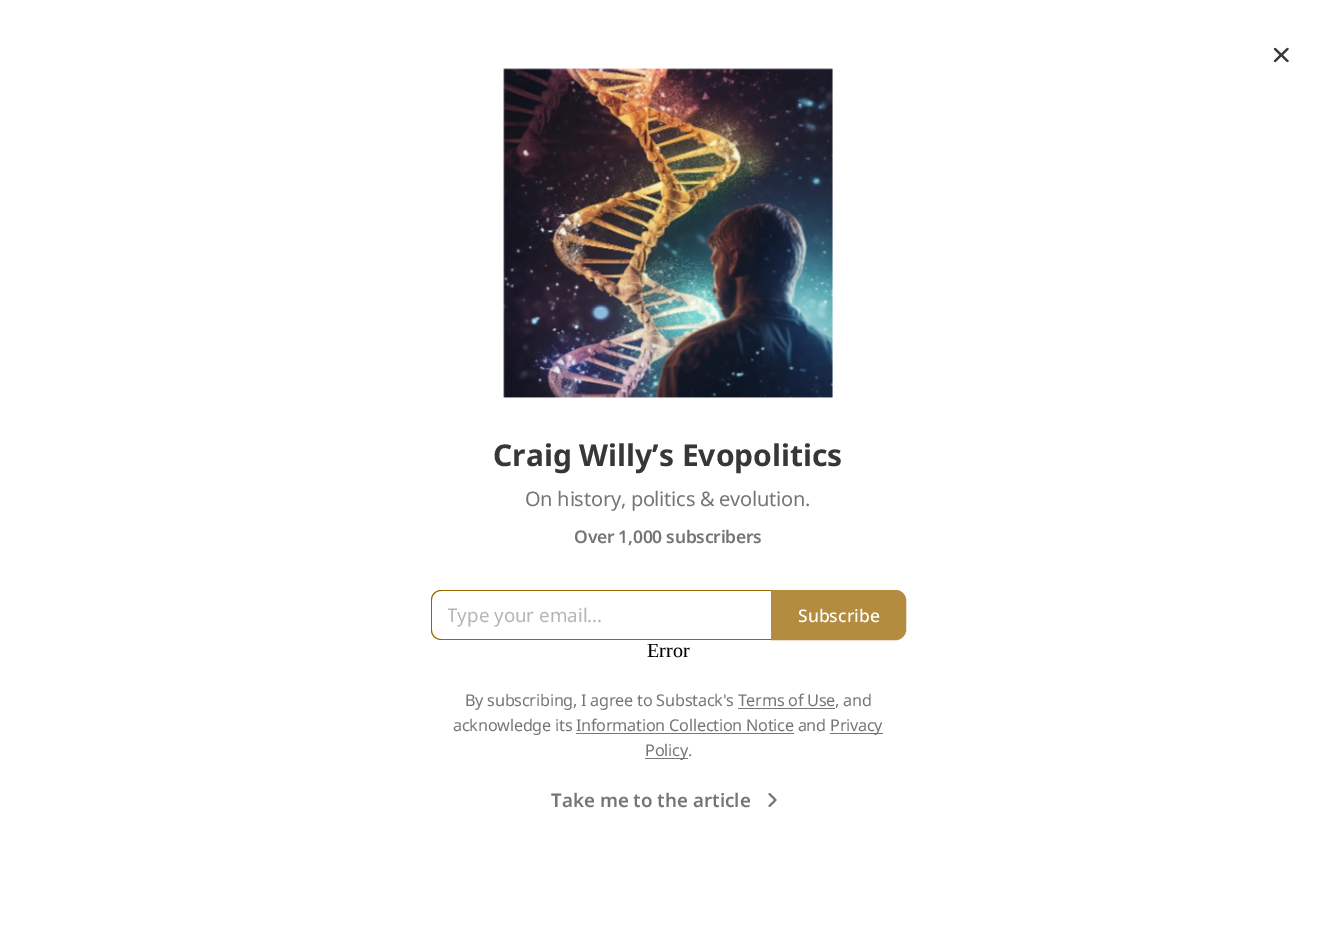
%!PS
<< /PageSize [1336 940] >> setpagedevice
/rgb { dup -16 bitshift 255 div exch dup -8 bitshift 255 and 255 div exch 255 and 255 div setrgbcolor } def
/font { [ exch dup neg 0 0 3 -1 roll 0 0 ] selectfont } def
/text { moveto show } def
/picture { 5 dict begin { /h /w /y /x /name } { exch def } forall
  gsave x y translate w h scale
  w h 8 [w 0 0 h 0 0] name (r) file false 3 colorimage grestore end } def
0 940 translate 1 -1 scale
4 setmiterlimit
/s1 { /NotoSans-Bold 30 font 16#363737 rgb } def
/s2 { /NotoSans-Regular 18.75 font 16#B6B6B6 rgb } def
/s3 { /NotoSans-Medium 17.5 font 16#FFFFFF rgb } def
/s4 { /LiberationSerif-Regular 20 font 16#000000 rgb } def
/s5 { /NotoSans-SemiBold 18.75 font 16#757575 rgb } def
16#FFFFFF rgb
0 0 1336 940 rectfill
16#363737 rgb
2.1 setlinewidth
1 setlinecap
1 setlinejoin
1287.5 49 moveto 1275 61 lineto 1275 49 moveto 1287.5 61 lineto stroke
(pic1.raw) 503 68 330 330 picture
s1
(Craig Willy’s Evopolitics) 493 466 text
/NotoSans-Regular 20 font
16#757575 rgb
525 506 moveto -0.25 0 (On history, politics & evolution.) ashow
/NotoSans-SemiBold 17.5 font
574 543 moveto -0.25 0 (Over 1,000 subscribers) ashow
16#9A6600 rgb
441 590 moveto 771 590 lineto 771 640 lineto 441 640 lineto 436 640 431 636 431 630 curveto 431 600 lineto 431 594 436 590 441 590 curveto closepath 441 591 moveto 771 591 lineto 771 639 lineto 441 639 lineto 436 639 432 635 432 630 curveto 432 600 lineto 432 595 436 591 441 591 curveto closepath eofill
gsave
448 603 308 25 rectclip
s2
(Type your email...) 447 622 text
grestore
16#B38C40 rgb
771.5 590.5 moveto 896 590.5 lineto 901 590.5 905.5 595 905.5 600 curveto 905.5 630 lineto 905.5 635 901 639.5 896 639.5 curveto 771.5 639.5 lineto closepath gsave fill grestore
1 setlinewidth
0 setlinecap
0 setlinejoin
stroke
s3
(Subscribe) 798 622 text
s4
(Error) 647 657 text
/NotoSans-Regular 16.25 font
16#757575 rgb
465 706 moveto -0.25 0 (By subscribing, I agree to Substack's Terms of Use, and) ashow
16#777777 rgb
738 708 97 1 rectfill
16#757575 rgb
453 731 moveto -0.25 0 (acknowledge its Information Collection Notice and) ashow
16#777777 rgb
830 733 53 1 rectfill
16#757575 rgb
830 731 moveto -0.25 0 (Privacy) ashow
16#777777 rgb
576 733 218 1 rectfill
645 758 43 1 rectfill
16#757575 rgb
645 756 moveto -0.25 0 (Policy.) ashow
s5
(Take me to the article) 551 807 text
2.1 setlinewidth
1 setlinecap
1 setlinejoin
769.5 806 moveto 775.5 800 lineto 769.5 794 lineto stroke
showpage
